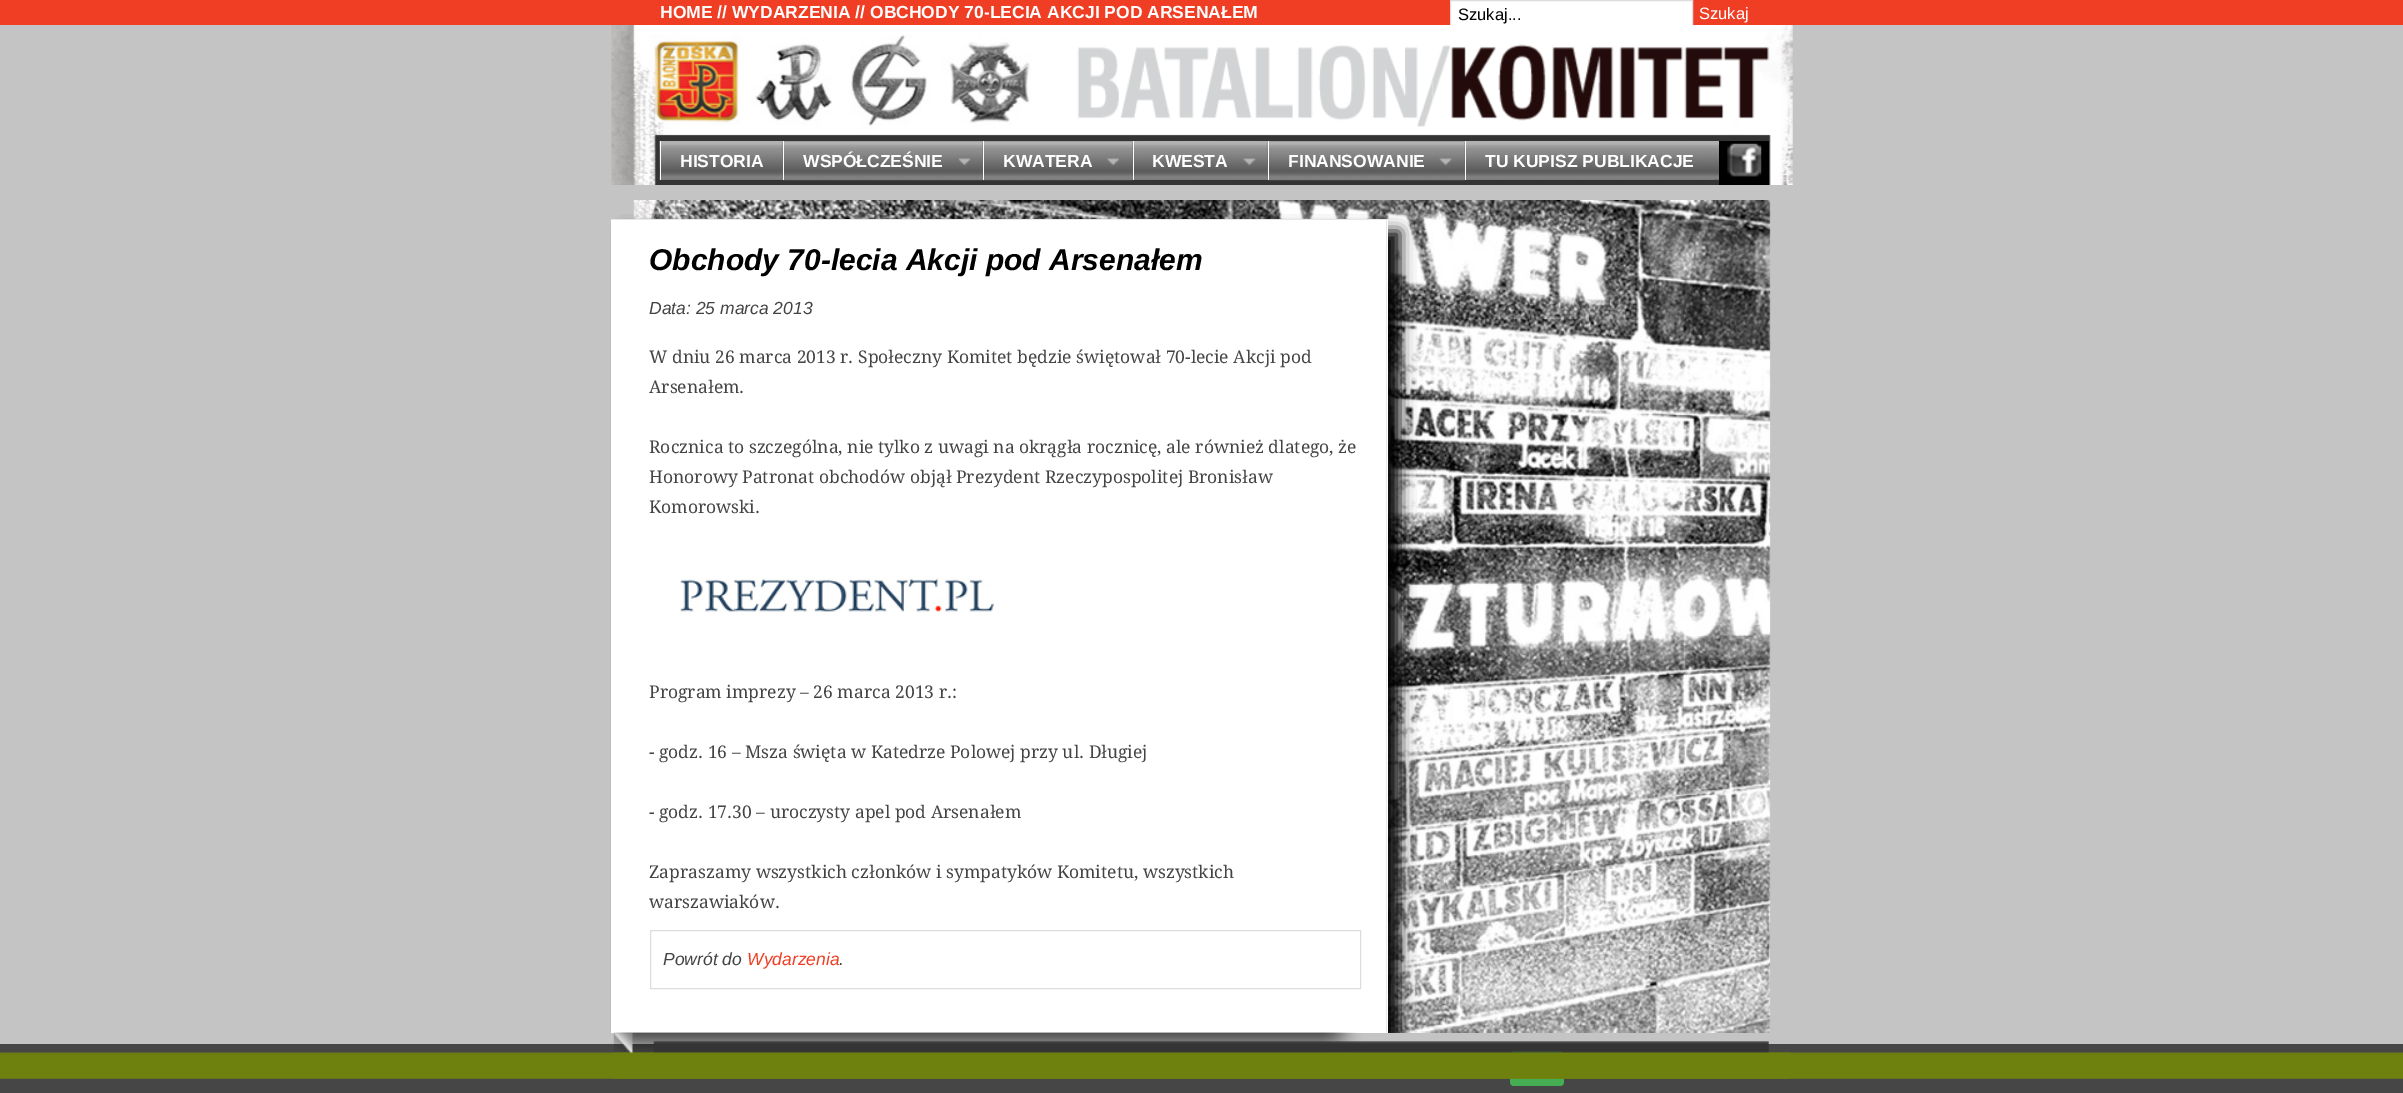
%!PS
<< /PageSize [2403 1093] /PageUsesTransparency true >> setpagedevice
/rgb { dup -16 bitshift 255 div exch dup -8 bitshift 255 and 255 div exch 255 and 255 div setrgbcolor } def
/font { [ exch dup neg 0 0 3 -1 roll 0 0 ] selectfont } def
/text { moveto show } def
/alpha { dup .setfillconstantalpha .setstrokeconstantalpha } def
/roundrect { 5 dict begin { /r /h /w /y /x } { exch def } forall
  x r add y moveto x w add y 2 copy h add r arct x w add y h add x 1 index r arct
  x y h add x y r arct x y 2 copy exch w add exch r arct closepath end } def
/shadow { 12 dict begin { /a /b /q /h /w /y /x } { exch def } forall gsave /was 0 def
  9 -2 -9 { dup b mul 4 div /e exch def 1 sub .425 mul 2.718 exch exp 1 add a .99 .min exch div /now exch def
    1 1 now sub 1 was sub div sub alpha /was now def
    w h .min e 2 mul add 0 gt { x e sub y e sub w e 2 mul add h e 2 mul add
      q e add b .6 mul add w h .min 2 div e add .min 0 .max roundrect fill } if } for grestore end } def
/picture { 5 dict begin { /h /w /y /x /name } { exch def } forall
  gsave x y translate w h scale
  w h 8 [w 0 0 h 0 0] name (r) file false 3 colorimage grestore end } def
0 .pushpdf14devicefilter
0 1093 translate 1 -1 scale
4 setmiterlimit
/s1 { /LiberationSans-Bold 17.5 font 16#FFFFFF rgb } def
/s2 { /LiberationSans-Regular 16.5 font 16#000000 rgb } def
/s3 { /LiberationSans-Regular 16.5 font 16#FFFFFF rgb } def
/s4 { /LiberationSans-BoldItalic 30 font 16#000000 rgb } def
/s5 { /LiberationSans-Italic 17.5 font 16#444444 rgb } def
/s6 { /DroidSerif-Regular 17.5 font 16#444444 rgb } def
/s7 { /LiberationSans-Italic 17.5 font 16#EF3E24 rgb } def
16#C4C4C4 rgb
0 0 2403 1093 rectfill
16#EF3E24 rgb
0 0 2403 25 rectfill
s1
(HOME // WYDARZENIA // OBCHODY 70-LECIA AKCJI POD ARSENAŁEM) 660 18 text
1451 1 241 24 rectfill
16#DDDDDD rgb
1450.5 0.5 242 28 rectstroke
s2
(Szukaj...) 1458 20 text
s3
(Szukaj) 1699 19 text
(pic1.raw) 611 25 1182 160 picture
(pic2.raw) 1077 45 356 82 picture
(pic3.raw) 1432 44 338 77 picture
(pic4.raw) 659 141 1060 39 picture
16#666666 rgb
661 141 122 39 rectfill
(pic5.raw) 659 141 124 39 picture
16#FFFFFF rgb
660 141 1 39 rectfill
s1
(HISTORIA) 680 167 text
16#666666 rgb
784 141 199 39 rectfill
(pic6.raw) 782 141 201 40 picture
16#FFFFFF rgb
783 141 1 39 rectfill
(WSPÓŁCZEŚNIE) 803 167 text
(pic7.raw) 958 158 13 8 picture
16#666666 rgb
984 141 149 39 rectfill
(pic8.raw) 982 141 151 40 picture
16#FFFFFF rgb
983 141 1 39 rectfill
(KWATERA) 1003 167 text
(pic9.raw) 1107 158 12 8 picture
16#666666 rgb
1134 141 134 39 rectfill
(pic10.raw) 1132 141 136 39 picture
16#FFFFFF rgb
1133 141 1 39 rectfill
(KWESTA) 1152 167 text
(pic11.raw) 1243 158 13 8 picture
16#666666 rgb
1269 141 196 39 rectfill
(pic12.raw) 1267 141 198 40 picture
16#FFFFFF rgb
1268 141 1 39 rectfill
(FINANSOWANIE) 1288 167 text
(pic13.raw) 1439 158 13 8 picture
(pic14.raw) 1464 141 250 39 picture
1465 141 1 39 rectfill
(TU KUPISZ PUBLIKACJE) 1485 167 text
16#000000 rgb
1719 141 50 44 rectfill
(pic15.raw) 1727 143 35 34 picture
(pic16.raw) 633 200 1138 833 picture
gsave
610 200 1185 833 rectclip
624 231 776 814 0 7.5 1 shadow
grestore
16#FFFFFF rgb
611 220 777 813 rectfill
16#E7E7E7 rgb
611 219 777 1 rectfill
1386 219 1 814 rectfill
s4
(Obchody 70-lecia Akcji pod Arsenałem) 649 270 text
s5
(Data: 25 marca 2013) 649 314 text
s6
(W dniu 26 marca 2013 r. Społeczny Komitet będzie świętował 70-lecie Akcji pod) 649 363 text
(Arsenałem.) 649 393 text
(Rocznica to szczególna, nie tylko z uwagi na okrągła rocznicę, ale również dlatego, że) 649 453 text
(Honorowy Patronat obchodów objął Prezydent Rzeczypospolitej Bronisław) 649 483 text
(Komorowski.) 649 513 text
(pic17.raw) 680 578 314 34 picture
(Program imprezy – 26 marca 2013 r.:) 649 698 text
(- godz. 16 – Msza święta w Katedrze Polowej przy ul. Długiej) 649 758 text
(- godz. 17.30 – uroczysty apel pod Arsenałem) 649 818 text
(Zapraszamy wszystkich członków i sympatyków Komitetu, wszystkich) 649 878 text
(warszawiaków.) 649 908 text
16#DDDDDD rgb
650.5 930.5 710 58 rectstroke
s5
(Powrót do) 663 965 text
s7
(Wydarzenia) 747 965 text
s5
(.) 839 965 text
16#464646 rgb
0 1044 2403 49 rectfill
16#45AE52 rgb
1510 1051 54 35 4 roundrect fill
(pic18.raw) 0 1052 2403 27 picture
(pic19.raw) 613 1032 1177 47 picture
.poppdf14devicefilter showpage
